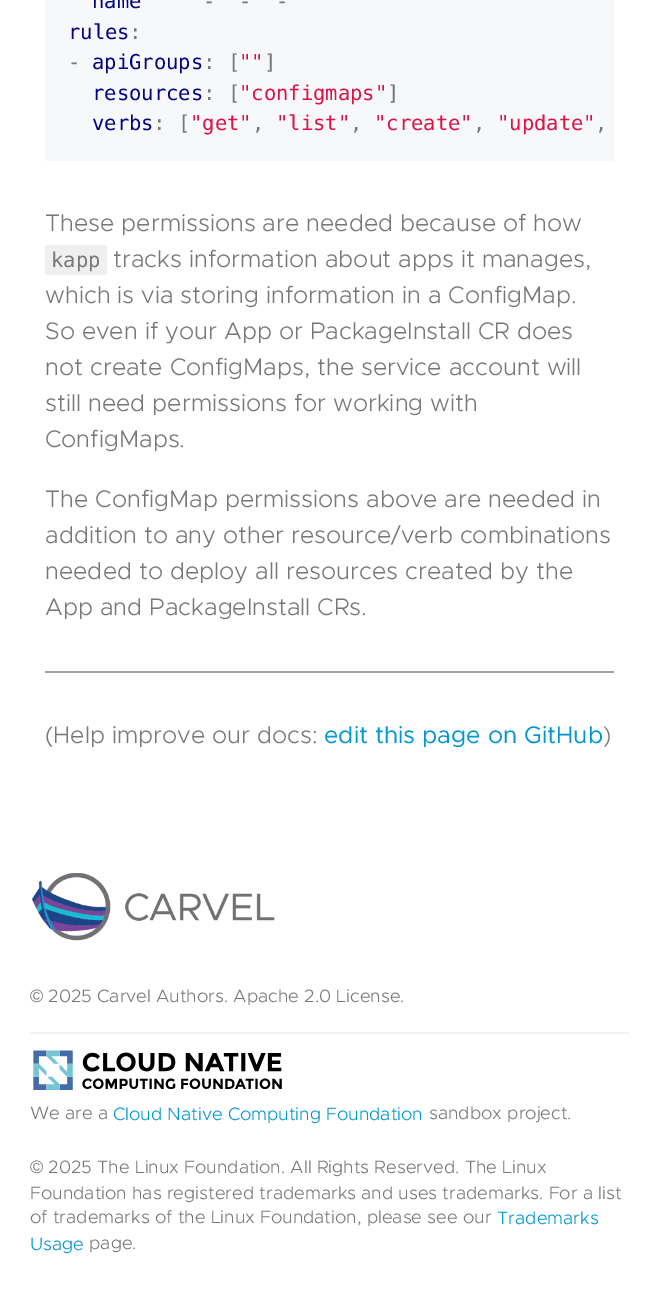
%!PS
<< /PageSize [658 1316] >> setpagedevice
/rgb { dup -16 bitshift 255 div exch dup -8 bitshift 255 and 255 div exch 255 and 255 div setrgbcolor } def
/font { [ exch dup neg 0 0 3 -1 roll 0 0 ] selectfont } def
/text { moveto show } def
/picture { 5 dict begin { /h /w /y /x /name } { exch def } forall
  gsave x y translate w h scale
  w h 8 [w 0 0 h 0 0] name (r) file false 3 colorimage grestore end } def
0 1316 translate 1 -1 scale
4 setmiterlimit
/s1 { /DejaVuSansMono-Regular 20.5 font 16#000080 rgb } def
/s2 { /DejaVuSansMono-Regular 20.5 font 16#777777 rgb } def
/s3 { /DejaVuSansMono-Regular 20.5 font 16#DD1144 rgb } def
/s4 { /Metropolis-Light 24 font 16#777777 rgb } def
/s5 { /Metropolis-Regular 24 font 16#0095D3 rgb } def
/s6 { /LiberationSans-Regular 18 font 16#777777 rgb } def
/s7 { /Metropolis-Light 18 font 16#777777 rgb } def
/s8 { /Metropolis-Light 18 font 16#0095D3 rgb } def
16#FFFFFF rgb
0 0 658 1316 rectfill
16#F6F8FA rgb
45 0 569 161 rectfill
s1
(name) 92 8 text
s2
(-) 203 8 text
(-) 239 8 text
(-) 276 8 text
s1
(rules) 68 39 text
s2
(:) 129 39 text
s1
(apiGroups) 92 69 text
s2
(: [) 203 69 text
s3
("") 239 69 text
s2
(]) 264 69 text
(-) 68 69 text
s1
(resources) 92 100 text
s2
(: [) 203 100 text
s3
("configmaps") 239 100 text
s2
(]) 387 100 text
s1
(verbs) 92 130 text
s2
(: [) 153 130 text
s3
("get") 190 130 text
s2
(,) 252 130 text
s3
("list") 276 130 text
s2
(,) 350 130 text
s3
("create") 374 130 text
s2
(,) 473 130 text
s3
("update") 497 130 text
s2
(,) 595 130 text
s4
(These permissions are needed because of how) 45 231 text
16#EFEFEF rgb
45 245 62 30 rectfill
s2
(kapp) 51 267 text
s4
(tracks information about apps it manages,) 113 267 text
(which is via storing information in a ConfigMap.) 45 303 text
(So even if your App or PackageInstall CR does) 45 339 text
(not create ConfigMaps, the service account will) 45 375 text
(still need permissions for working with) 45 411 text
(ConfigMaps.) 45 447 text
(The ConfigMap permissions above are needed in) 45 507 text
(addition to any other resource/verb combinations) 45 543 text
(needed to deploy all resources created by the) 45 579 text
(App and PackageInstall CRs.) 45 615 text
16#A1A1A1 rgb
45 671 569 2 rectfill
s4
(\(Help improve our docs:) 45 743 text
s5
(edit this page on GitHub) 324 743 text
s4
(\)) 603 743 text
16#F2F2F2 rgb
30 1032 599 2 rectfill
(pic1.raw) 31 873 244 68 picture
s6
(©) 30 1002 text
s7
(2025 Carvel Authors. Apache 2.0 License.) 48 1002 text
(pic2.raw) 33 1050 249 40 picture
(We are a) 30 1119 text
s8
(Cloud Native Computing Foundation) 113 1120 text
s7
(sandbox project.) 429 1119 text
s6
(©) 30 1173 text
s7
(2025 The Linux Foundation. All Rights Reserved. The Linux) 48 1173 text
(Foundation has registered trademarks and uses trademarks. For a list) 30 1199 text
(of trademarks of the Linux Foundation, please see our) 30 1223 text
s8
(Trademarks) 497 1224 text
(Usage) 30 1250 text
s7
(page.) 89 1249 text
showpage
